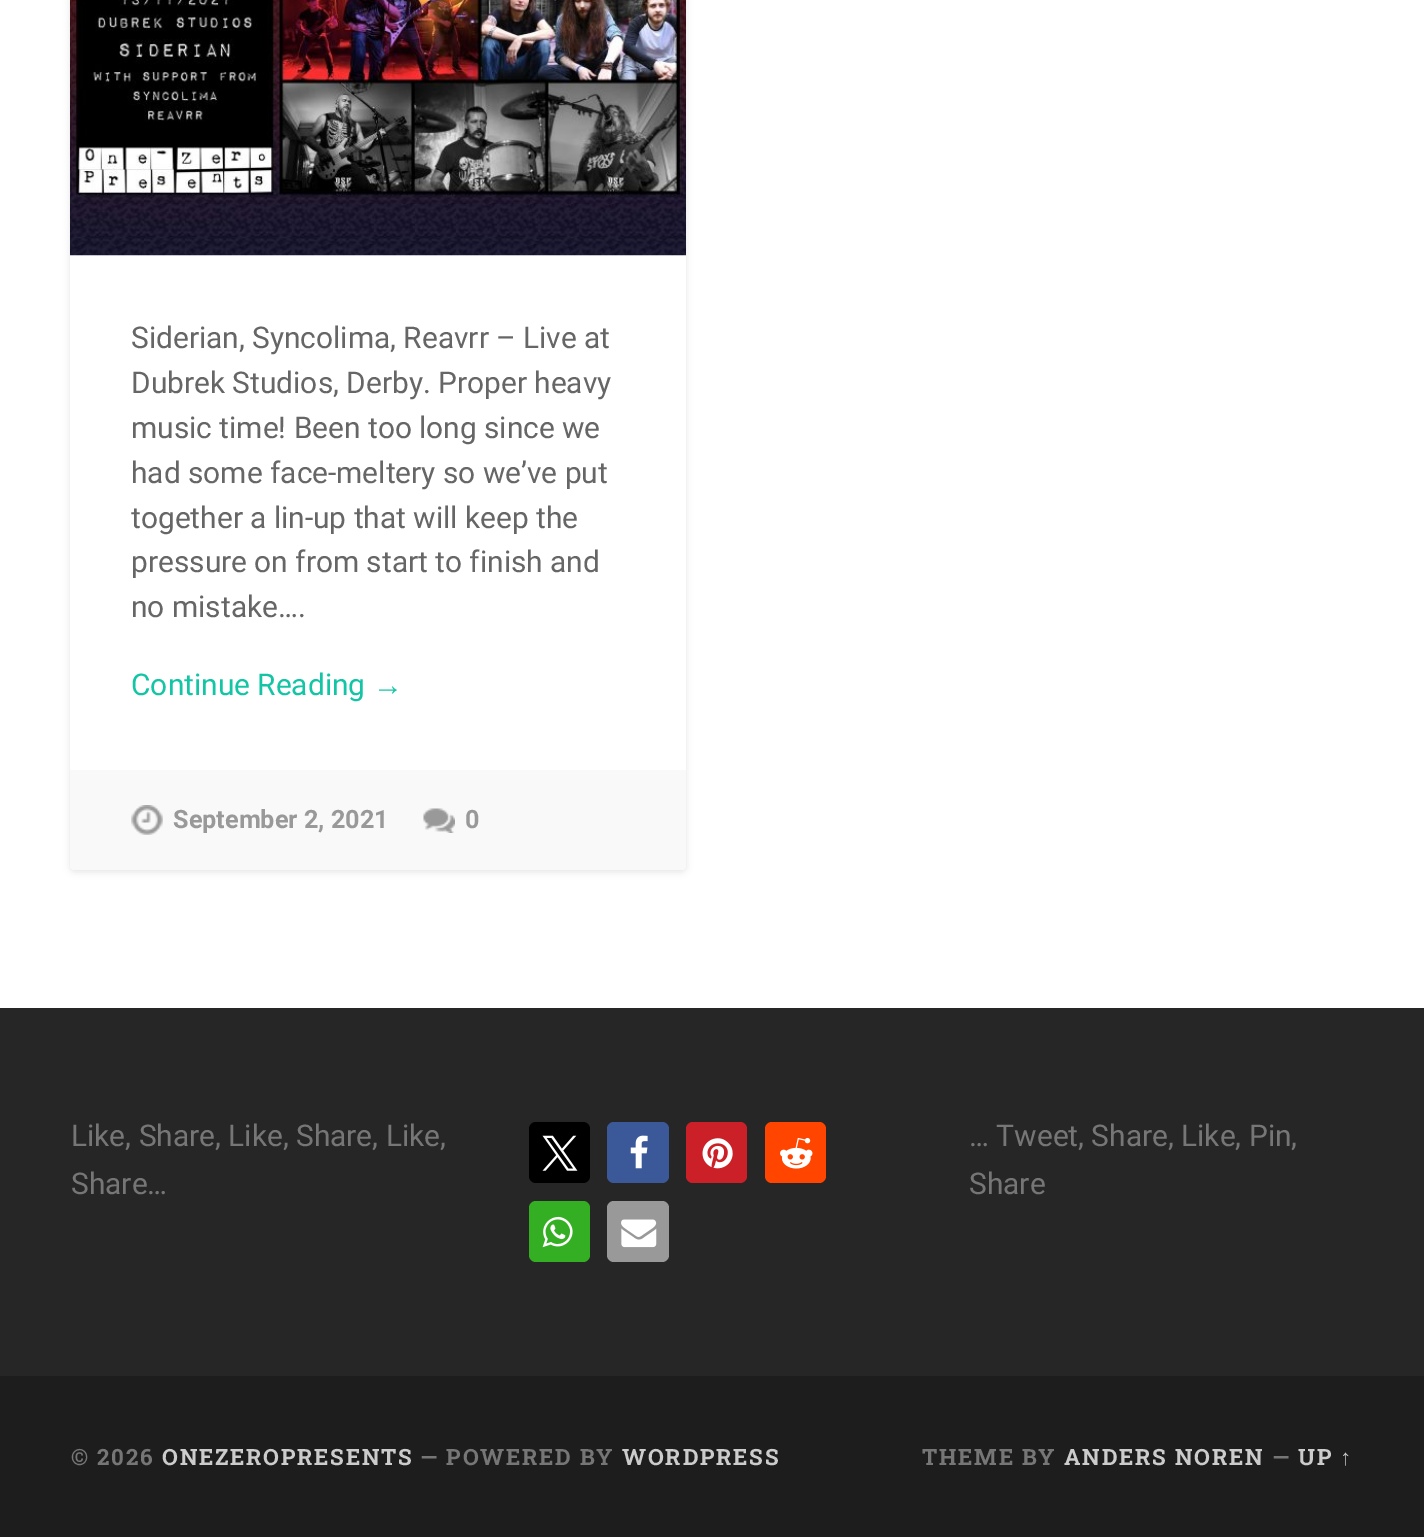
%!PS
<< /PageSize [1424 1537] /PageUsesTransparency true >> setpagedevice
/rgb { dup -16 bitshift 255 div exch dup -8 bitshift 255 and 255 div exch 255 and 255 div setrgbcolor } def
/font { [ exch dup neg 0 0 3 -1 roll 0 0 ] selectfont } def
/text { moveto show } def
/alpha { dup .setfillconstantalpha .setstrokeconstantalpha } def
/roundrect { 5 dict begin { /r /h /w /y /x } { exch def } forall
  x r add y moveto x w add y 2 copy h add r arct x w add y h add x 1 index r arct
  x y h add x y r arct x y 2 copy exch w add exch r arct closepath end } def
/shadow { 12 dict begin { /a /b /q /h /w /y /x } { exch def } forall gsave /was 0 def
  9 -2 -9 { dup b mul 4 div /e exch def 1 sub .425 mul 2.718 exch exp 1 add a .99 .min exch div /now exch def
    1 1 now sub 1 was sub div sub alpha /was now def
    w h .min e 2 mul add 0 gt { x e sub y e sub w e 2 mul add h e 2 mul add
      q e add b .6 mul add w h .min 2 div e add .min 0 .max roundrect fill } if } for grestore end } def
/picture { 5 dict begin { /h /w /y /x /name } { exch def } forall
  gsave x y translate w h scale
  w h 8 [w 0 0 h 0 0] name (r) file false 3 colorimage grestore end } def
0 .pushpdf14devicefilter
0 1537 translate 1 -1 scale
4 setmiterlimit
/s1 { /Roboto-Regular 29.9 font 16#666666 rgb } def
/s2 { /Roboto-Regular 29.9 font 16#13C4A5 rgb } def
/s3 { /LiberationSans-Regular 29.9 font 16#13C4A5 rgb } def
/s4 { /Roboto-Bold 25.25 font 16#999999 rgb } def
/s5 { /Roboto-Regular 29.9 font 16#767676 rgb } def
16#FFFFFF rgb
0 0 1424 1537 rectfill
16#000000 rgb
70 -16 616 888 5 3.5 0.1 shadow
16#FFFFFF rgb
70 -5 616 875 5 roundrect fill
(pic1.raw) 70 0 616 256 picture
s1
(Siderian, Syncolima, Reavrr – Live at) 131 348 text
(Dubrek Studios, Derby. Proper heavy) 131 393 text
(music time! Been too long since we) 131 438 text
(had some face-meltery so we’ve put) 131 483 text
(together a lin-up that will keep the) 131 528 text
(pressure on from start to finish and) 131 572 text
(no mistake….) 131 617 text
s2
(Continue Reading) 131 695 text
s3
(→) 373 695 text
16#F9F9F9 rgb
70 770 moveto 686 770 lineto 686 865 lineto 686 868 684 870 681 870 curveto 75 870 lineto 72 870 70 868 70 865 curveto closepath fill
(pic2.raw) 131 805 32 30 picture
s4
(September 2, 2021) 173 828 text
(pic3.raw) 423 808 32 25 picture
(0) 465 828 text
16#262626 rgb
0 1008 1424 368 rectfill
s5
(Like, Share, Like, Share, Like,) 71 1146 text
(Share…) 71 1194 text
16#000000 rgb
529 1122 61 61 7 roundrect fill
(pic4.raw) 542 1135 36 36 picture
16#3B5998 rgb
607 1122 62 61 7 roundrect fill
(pic5.raw) 630 1135 18 34 picture
16#CB2027 rgb
686 1122 61 61 7 roundrect fill
(pic6.raw) 702 1138 31 31 picture
16#FF4500 rgb
765 1122 61 61 7 roundrect fill
(pic7.raw) 780 1137 33 32 picture
16#34AF23 rgb
529 1201 61 61 7 roundrect fill
(pic8.raw) 542 1216 31 32 picture
16#999999 rgb
607 1201 62 61 7 roundrect fill
(pic9.raw) 621 1219 36 29 picture
s5
(… Tweet, Share, Like, Pin,) 969 1146 text
(Share) 969 1194 text
16#1D1D1D rgb
0 1376 1424 161 rectfill
/RobotoSlab-Bold 22.4 font
16#767676 rgb
71 1465 moveto 1.75 0 (© 2026) ashow
16#CCCCCC rgb
162 1465 moveto 1.75 0 (ONEZEROPRESENTS) ashow
16#767676 rgb
420 1465 moveto 1.75 0 (— POWERED BY) ashow
16#CCCCCC rgb
622 1465 moveto 1.75 0 (WORDPRESS) ashow
16#767676 rgb
922 1465 moveto 1.75 0 (THEME BY) ashow
16#CCCCCC rgb
1064 1465 moveto 1.75 0 (ANDERS NOREN) ashow
16#767676 rgb
1272 1465 moveto 1.75 0 (—) ashow
16#CCCCCC rgb
1298 1465 moveto 1.75 0 (UP) ashow
/LiberationSans-Bold 22.4 font
1340 1465 moveto 1.75 0 (↑) ashow
.poppdf14devicefilter showpage
